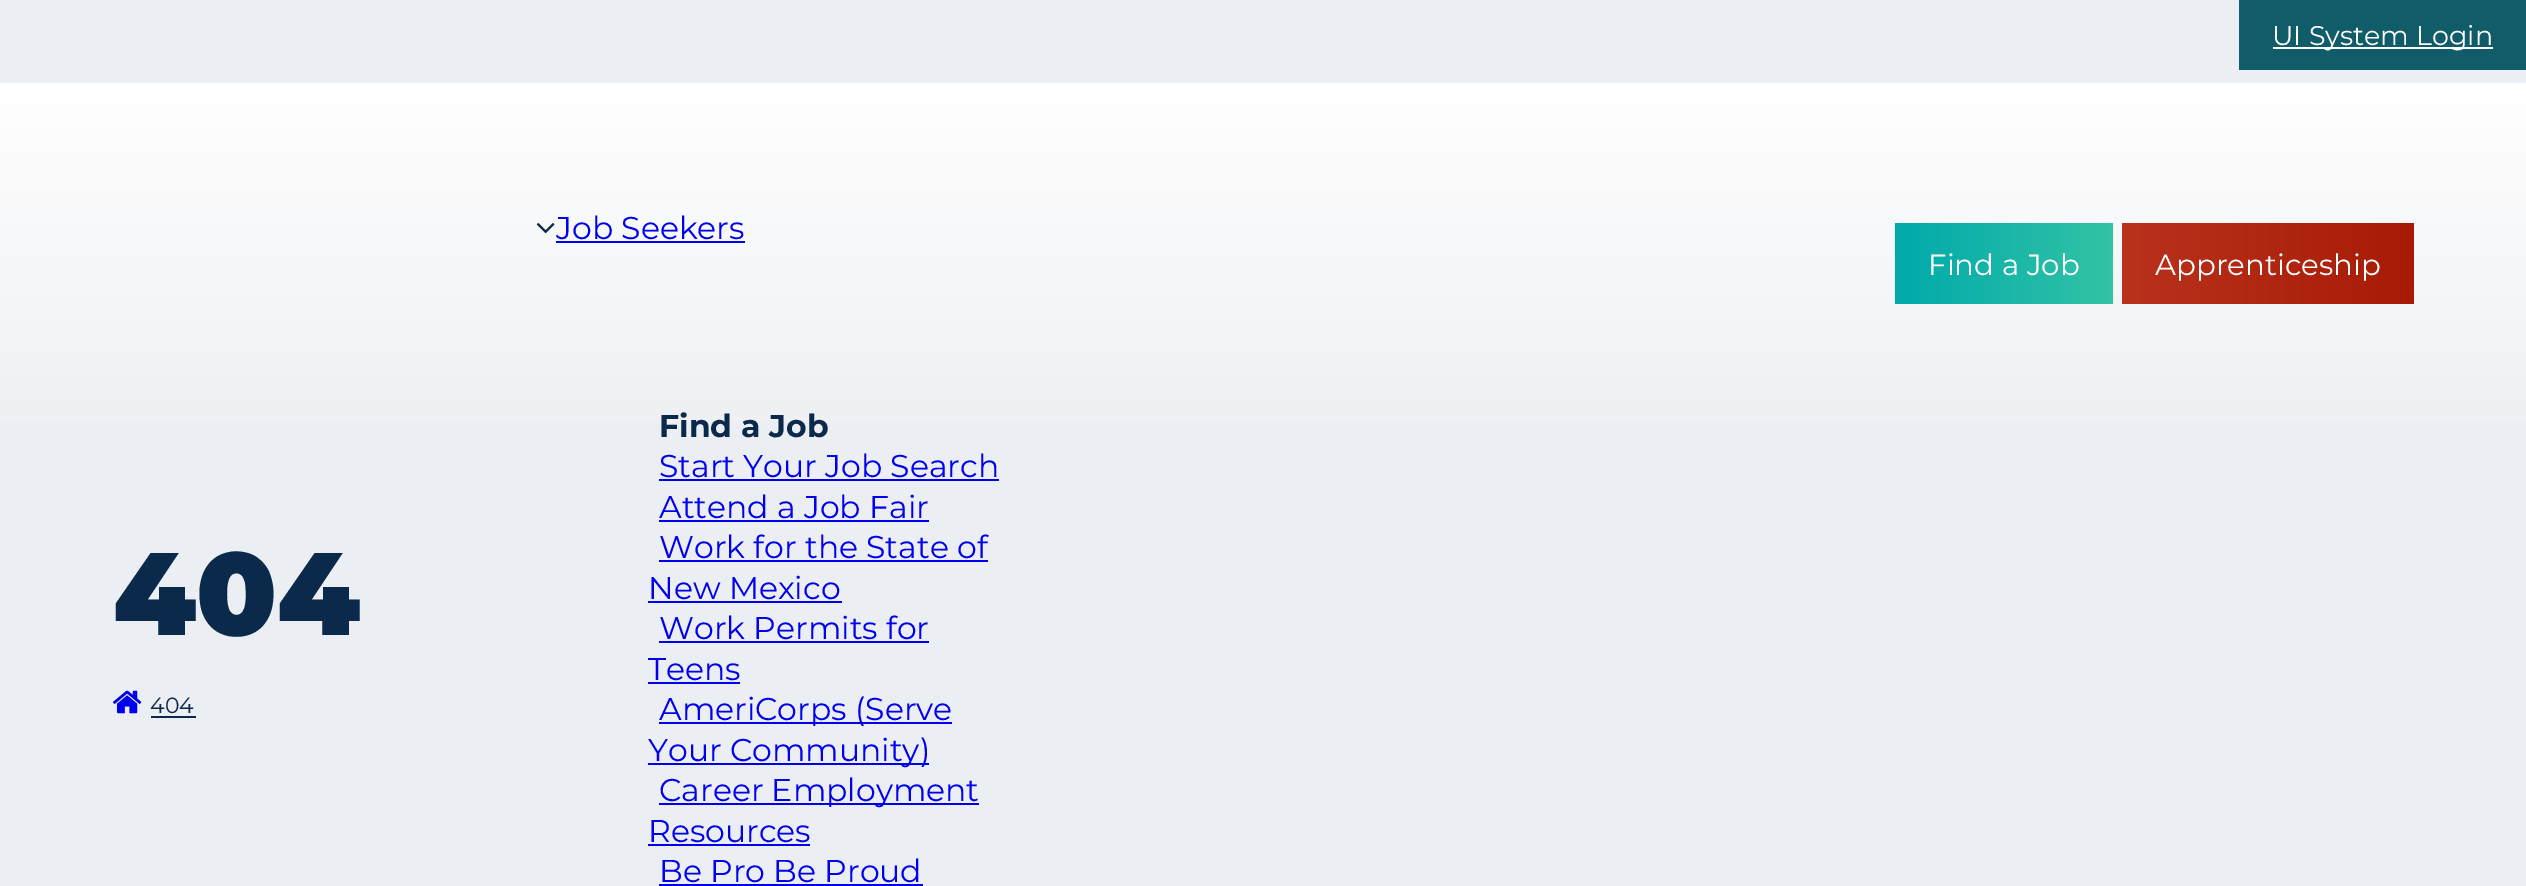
%!PS
<< /PageSize [2526 886] >> setpagedevice
/rgb { dup -16 bitshift 255 div exch dup -8 bitshift 255 and 255 div exch 255 and 255 div setrgbcolor } def
/font { [ exch dup neg 0 0 3 -1 roll 0 0 ] selectfont } def
/text { moveto show } def
/picture { 5 dict begin { /h /w /y /x /name } { exch def } forall
  gsave x y translate w h scale
  w h 8 [w 0 0 h 0 0] name (r) file false 3 colorimage grestore end } def
0 886 translate 1 -1 scale
4 setmiterlimit
/s1 { /Montserrat-Black 117 font 16#0B294B rgb } def
/s2 { /Montserrat-Regular 22 font 16#0B294B rgb } def
/s3 { /Montserrat-Regular 27 font 16#FFFFFF rgb } def
/s4 { /Montserrat-Regular 31.5 font 16#0000EE rgb } def
/s5 { /Montserrat-Bold 31.5 font 16#0B294B rgb } def
/s6 { /Montserrat-Regular 29.25 font 16#FFFFFF rgb } def
16#EBEEF2 rgb
0 0 2526 886 rectfill
s1
(404) 113 635 text
(pic1.raw) 113 690 29 24 picture
s2
(404) 150 713 text
151 716 45 2 rectfill
16#115C69 rgb
2239 0 287 70 rectfill
16#FFFFFF rgb
2273 47 220 2 rectfill
s3
(UI System Login) 2272 45 text
gsave 0 83 moveto 2526 83 lineto 2526 422 lineto 0 422 lineto closepath clip newpath
<< /ShadingType 2 /ColorSpace /DeviceRGB /Coords [1263 83 1263 470] /Extend [true true] /Function << /FunctionType 3 /Domain [0 1] /Functions [<< /FunctionType 2 /Domain [0 1] /C0 [1 1 1] /C1 [1 1 1] /N 1 >> << /FunctionType 2 /Domain [0 1] /C0 [1 1 1] /C1 [0.922 0.933 0.945] /N 1 >>] /Bounds [0.01] /Encode [0 1 0 1] >> >> shfill grestore
(pic2.raw) 536 223 19 11 picture
s4
(Job Seekers) 556 239 text
556 241 189 2 rectfill
s5
(Find a Job) 659 437 text
s4
(Start Your Job Search) 659 477 text
659 479 340 2 rectfill
(Attend a Job Fair) 659 518 text
659 520 270 2 rectfill
(Work for the State of) 659 558 text
659 560 329 2 rectfill
(New Mexico) 648 599 text
648 601 194 2 rectfill
(Work Permits for) 659 639 text
659 641 270 2 rectfill
(Teens) 648 680 text
648 682 92 2 rectfill
659 722 293 2 rectfill
(AmeriCorps \(Serve) 659 720 text
648 763 281 2 rectfill
(Your Community\)) 648 761 text
659 803 320 2 rectfill
(Career Employment) 659 801 text
(Resources) 648 842 text
648 844 162 2 rectfill
(Be Pro Be Proud) 659 882 text
659 884 264 2 rectfill
gsave 1895 223 moveto 2113 223 lineto 2113 304 lineto 1895 304 lineto closepath clip newpath
<< /ShadingType 2 /ColorSpace /DeviceRGB /Coords [1895 263 2113 263] /Extend [true true] /Function << /FunctionType 3 /Domain [0 1] /Functions [<< /FunctionType 2 /Domain [0 1] /C0 [0 0.667 0.671] /C1 [0 0.667 0.671] /N 1 >> << /FunctionType 2 /Domain [0 1] /C0 [0 0.667 0.671] /C1 [0.2 0.765 0.647] /N 1 >>] /Bounds [0.01] /Encode [0 1 0 1] >> >> shfill grestore
s6
(Find a Job) 1928 275 text
gsave 2122 223 moveto 2414 223 lineto 2414 304 lineto 2122 304 lineto closepath clip newpath
<< /ShadingType 2 /ColorSpace /DeviceRGB /Coords [2122 263 2414 263] /Extend [true true] /Function << /FunctionType 3 /Domain [0 1] /Functions [<< /FunctionType 2 /Domain [0 1] /C0 [0.725 0.196 0.11] /C1 [0.725 0.196 0.11] /N 1 >> << /FunctionType 2 /Domain [0 1] /C0 [0.725 0.196 0.11] /C1 [0.655 0.106 0.024] /N 1 >>] /Bounds [0.01] /Encode [0 1 0 1] >> >> shfill grestore
(Apprenticeship) 2155 275 text
showpage
